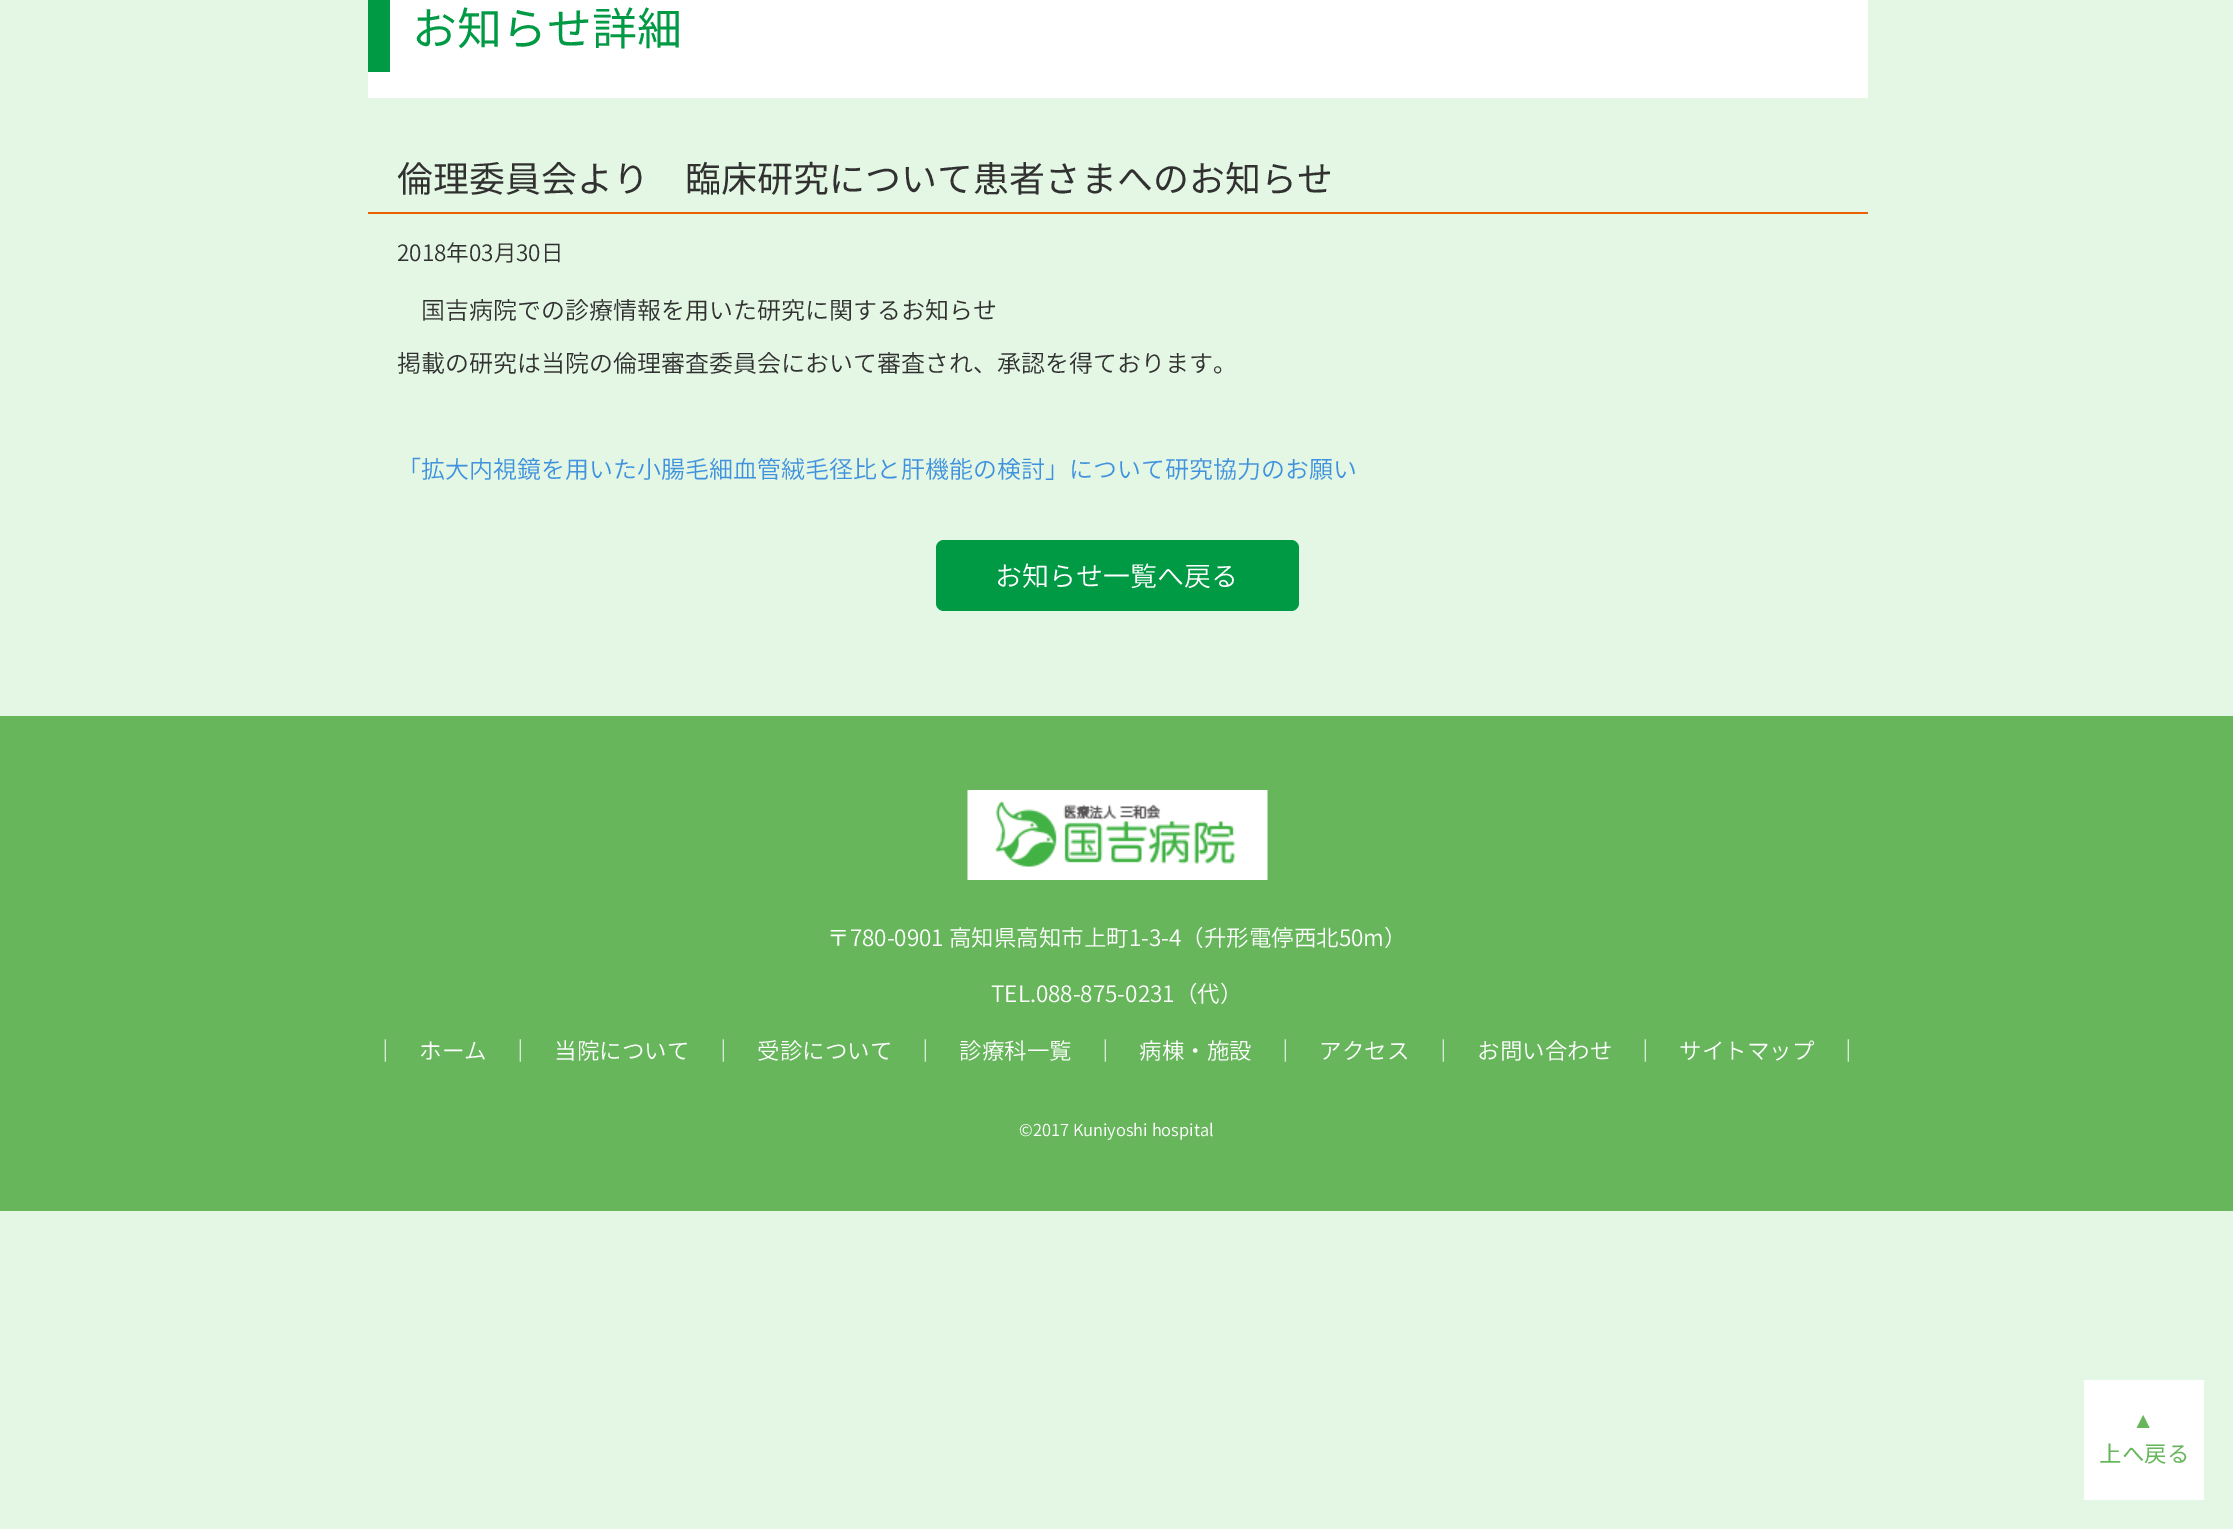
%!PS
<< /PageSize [2233 1529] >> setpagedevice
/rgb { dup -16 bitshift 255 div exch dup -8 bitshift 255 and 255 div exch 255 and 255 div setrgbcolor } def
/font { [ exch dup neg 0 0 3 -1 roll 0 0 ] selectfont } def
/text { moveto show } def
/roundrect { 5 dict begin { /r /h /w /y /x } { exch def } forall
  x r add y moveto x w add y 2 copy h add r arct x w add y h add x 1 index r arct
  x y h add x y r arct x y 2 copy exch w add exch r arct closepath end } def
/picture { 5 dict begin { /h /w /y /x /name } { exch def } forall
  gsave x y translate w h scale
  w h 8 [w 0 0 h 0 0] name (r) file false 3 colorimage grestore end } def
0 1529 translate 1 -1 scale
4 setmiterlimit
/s1 { /NotoSansJP-Regular 45 font 16#009944 rgb } def
/s2 { /NotoSansJP-Regular 36 font 16#313131 rgb } def
/s3 { /NotoSansJP-Light 22.5 font 16#313131 rgb } def
/s4 { /NotoSansJP-Light 24 font 16#313131 rgb } def
/s5 { /NotoSansJP-Light 24 font 16#4092DE rgb } def
/s6 { /NotoSansJP-Light 27 font 16#FFFFFF rgb } def
/s7 { /NotoSansJP-Light 22.5 font 16#FFFFFF rgb } def
/s8 { /NotoSansJP-Light 16.5 font 16#FFFFFF rgb } def
/s9 { /LiberationSans-Regular 22.5 font 16#67B65C rgb } def
/s10 { /NotoSansJP-Regular 22.5 font 16#67B65C rgb } def
16#E4F7E4 rgb
0 0 2233 1529 rectfill
16#FFFFFF rgb
368 0 1500 98 rectfill
s1
(お知らせ詳細) 412 45 text
368 0 22 72 rectfill
16#EB6100 rgb
368 212 1500 2 rectfill
s2
(倫理委員会より　臨床研究について患者さまへのお知らせ) 397 192 text
s3
(2018年03月30日) 397 261 text
s4
(国吉病院での診療情報を用いた研究に関するお知らせ) 421 319 text
gsave
398 284 1440 211 rectclip
(掲載の研究は当院の倫理審査委員会において審査され、承認を得ております。) 397 372 text
grestore
s5
(「拡大内視鏡を用いた小腸毛細血管絨毛径比と肝機能の検討」について研究協力のお願い) 397 478 text
16#009944 rgb
936 540 363 71 8 roundrect fill
s6
(お知らせ一覧へ戻る) 995 586 text
16#67B65C rgb
0 716 2233 495 rectfill
(pic1.raw) 967 790 301 90 picture
s7
(〒780-0901 高知県高知市上町1-3-4（升形電停西北50m）) 827 946 text
(TEL.088-875-0231（代）) 991 1002 text
(｜) 374 1059 text
(ホーム) 419 1059 text
(｜) 509 1059 text
(当院について) 554 1059 text
(｜) 712 1059 text
(受診について) 757 1059 text
(｜) 914 1059 text
(診療科一覧) 959 1059 text
(｜) 1094 1059 text
(病棟・施設) 1139 1059 text
(｜) 1274 1059 text
(アクセス) 1319 1059 text
(｜) 1432 1059 text
(お問い合わせ) 1477 1059 text
(｜) 1634 1059 text
(サイトマップ) 1679 1059 text
(｜) 1837 1059 text
s8
(©2017 Kuniyoshi hospital) 1019 1136 text
2084 1380 120 120 rectfill
s9
(▲) 2132 1428 text
s10
(上へ戻る) 2099 1462 text
showpage
